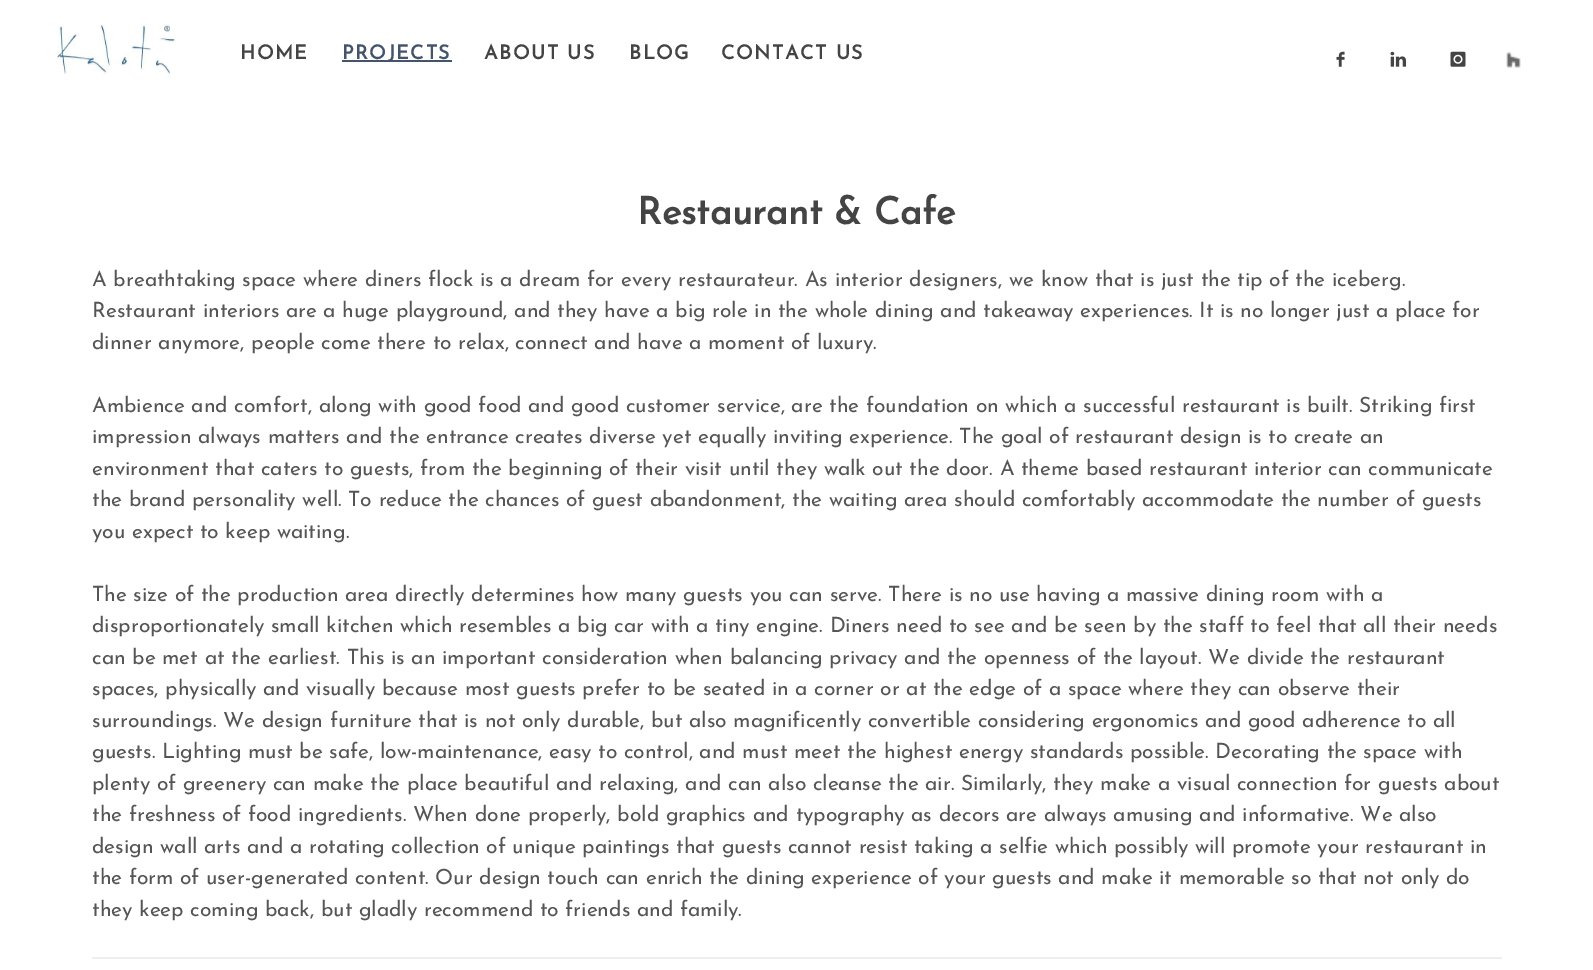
%!PS
<< /PageSize [1593 970] >> setpagedevice
/rgb { dup -16 bitshift 255 div exch dup -8 bitshift 255 and 255 div exch 255 and 255 div setrgbcolor } def
/font { [ exch dup neg 0 0 3 -1 roll 0 0 ] selectfont } def
/text { moveto show } def
/picture { 5 dict begin { /h /w /y /x /name } { exch def } forall
  gsave x y translate w h scale
  w h 8 [w 0 0 h 0 0] name (r) file false 3 colorimage grestore end } def
0 970 translate 1 -1 scale
4 setmiterlimit
/s1 { /JosefinSans-Bold 37.5 font 16#444444 rgb } def
/s2 { /JosefinSans-Regular 21 font 16#555555 rgb } def
16#FFFFFF rgb
0 0 1593 970 rectfill
(pic1.raw) 57 24 119 51 picture
/JosefinSans-Bold 19.5 font
16#444444 rgb
240 59 moveto 1.5 0 (HOME) ashow
16#44546A rgb
342 60 110 2 rectfill
342 59 moveto 1.5 0 (PROJECTS) ashow
16#444444 rgb
484 59 moveto 1.5 0 (ABOUT US) ashow
629 59 moveto 1.5 0 (BLOG) ashow
721 59 moveto 1.5 0 (CONTACT US) ashow
(pic2.raw) 1336 51 9 16 picture
(pic3.raw) 1390 51 17 16 picture
(pic4.raw) 1450 51 16 16 picture
(pic5.raw) 1506 52 15 16 picture
s1
(Restaurant & Cafe) 637 224 text
s2
(A breathtaking space where diners flock is a dream for every restaurateur. As interior designers, we know that is just the tip of the iceberg.) 92 286 text
(Restaurant interiors are a huge playground, and they have a big role in the whole dining and takeaway experiences. It is no longer just a place for) 92 317 text
(dinner anymore, people come there to relax, connect and have a moment of luxury.) 92 349 text
(Ambience and comfort, along with good food and good customer service, are the foundation on which a successful restaurant is built. Striking first) 92 412 text
(impression always matters and the entrance creates diverse yet equally inviting experience. The goal of restaurant design is to create an) 92 443 text
(environment that caters to guests, from the beginning of their visit until they walk out the door. A theme based restaurant interior can communicate) 92 475 text
(the brand personality well. To reduce the chances of guest abandonment, the waiting area should comfortably accommodate the number of guests) 92 506 text
(you expect to keep waiting.) 92 538 text
(The size of the production area directly determines how many guests you can serve. There is no use having a massive dining room with a) 92 601 text
(disproportionately small kitchen which resembles a big car with a tiny engine. Diners need to see and be seen by the staff to feel that all their needs) 92 632 text
(can be met at the earliest. This is an important consideration when balancing privacy and the openness of the layout. We divide the restaurant) 92 664 text
(spaces, physically and visually because most guests prefer to be seated in a corner or at the edge of a space where they can observe their) 92 695 text
(surroundings. We design furniture that is not only durable, but also magnificently convertible considering ergonomics and good adherence to all) 92 727 text
(guests. Lighting must be safe, low-maintenance, easy to control, and must meet the highest energy standards possible. Decorating the space with) 92 758 text
(plenty of greenery can make the place beautiful and relaxing, and can also cleanse the air. Similarly, they make a visual connection for guests about) 92 790 text
(the freshness of food ingredients. When done properly, bold graphics and typography as decors are always amusing and informative. We also) 92 821 text
(design wall arts and a rotating collection of unique paintings that guests cannot resist taking a selfie which possibly will promote your restaurant in) 92 853 text
(the form of user-generated content. Our design touch can enrich the dining experience of your guests and make it memorable so that not only do) 92 884 text
(they keep coming back, but gladly recommend to friends and family.) 92 916 text
16#EEEEEE rgb
92 957 1410 2 rectfill
showpage
